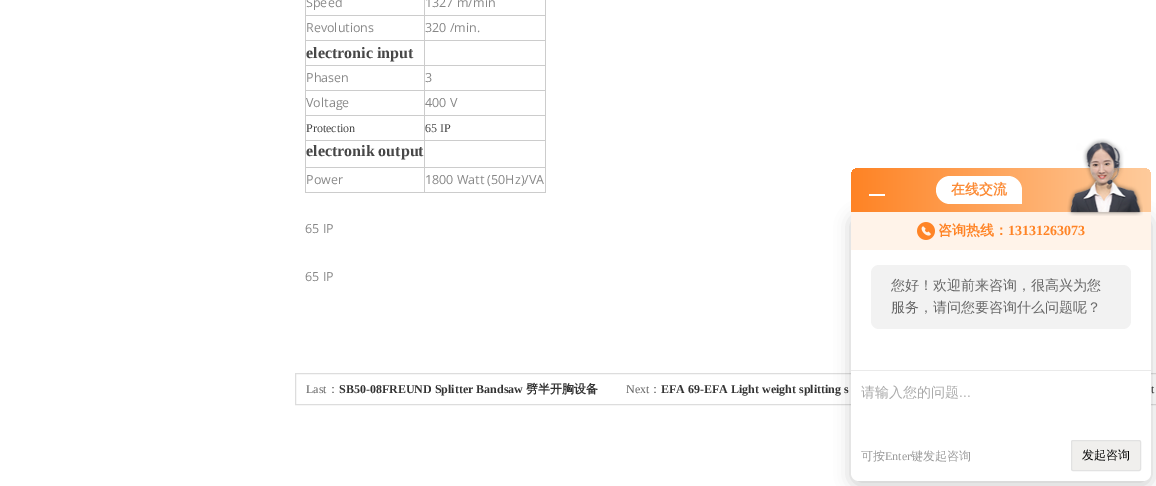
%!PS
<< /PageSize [1156 486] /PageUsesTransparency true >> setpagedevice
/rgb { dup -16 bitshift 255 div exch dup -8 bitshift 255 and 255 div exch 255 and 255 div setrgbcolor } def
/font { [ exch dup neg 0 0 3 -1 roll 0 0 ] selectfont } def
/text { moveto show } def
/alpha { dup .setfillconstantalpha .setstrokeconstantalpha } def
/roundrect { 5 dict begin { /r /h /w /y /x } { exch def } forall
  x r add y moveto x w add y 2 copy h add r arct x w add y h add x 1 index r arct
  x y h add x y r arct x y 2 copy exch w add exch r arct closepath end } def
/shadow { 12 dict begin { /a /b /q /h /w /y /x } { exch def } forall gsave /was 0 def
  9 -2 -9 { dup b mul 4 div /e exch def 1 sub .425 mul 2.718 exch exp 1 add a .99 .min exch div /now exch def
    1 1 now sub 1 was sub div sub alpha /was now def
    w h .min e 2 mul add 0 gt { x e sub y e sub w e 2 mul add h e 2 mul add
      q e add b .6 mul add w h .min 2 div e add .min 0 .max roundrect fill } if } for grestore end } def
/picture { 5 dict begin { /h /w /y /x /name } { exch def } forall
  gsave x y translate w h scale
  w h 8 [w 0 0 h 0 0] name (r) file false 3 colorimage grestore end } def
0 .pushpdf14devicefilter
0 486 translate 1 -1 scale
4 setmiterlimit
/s1 { /OpenSans-Regular 12.5 font 16#878787 rgb } def
/s2 { /LiberationSerif-Bold 16 font 16#474747 rgb } def
/s3 { /LiberationSerif-Regular 12 font 16#474747 rgb } def
/s4 { /LiberationSerif-Regular 12 font 16#666666 rgb } def
/s5 { /WenQuanYiZenHei-Medium 12 font 16#666666 rgb } def
/s6 { /LiberationSerif-Bold 12 font 16#333333 rgb } def
/s7 { /WenQuanYiZenHei-Bold 12 font 16#333333 rgb } def
/s8 { /LiberationSerif-Regular 12 font 16#333333 rgb } def
/s9 { /WenQuanYiZenHei-Bold 14 font 16#FB8B36 rgb } def
/s10 { /WenQuanYiZenHei-Bold 14 font 16#FF8426 rgb } def
/s11 { /LiberationSerif-Bold 14 font 16#FF8426 rgb } def
/s12 { /WenQuanYiZenHei-Medium 14 font 16#666666 rgb } def
/s13 { /WenQuanYiZenHei-Medium 14 font 16#AAAAAA rgb } def
/s14 { /LiberationSans-Regular 14 font 16#AAAAAA rgb } def
/s15 { /WenQuanYiZenHei-Medium 12 font 16#999999 rgb } def
/s16 { /LiberationSerif-Regular 12 font 16#999999 rgb } def
/s17 { /WenQuanYiZenHei-Medium 12 font 16#000000 rgb } def
16#FFFFFF rgb
0 0 1156 486 rectfill
s1
(Speed) 306 7 text
16#CCCCCC rgb
424 15 122 1 rectfill
424 40 122 1 rectfill
424 65 122 1 rectfill
424 90 122 1 rectfill
424 115 122 1 rectfill
424 140 122 1 rectfill
424 167 122 1 rectfill
545 167 1 26 rectfill
424 192 122 1 rectfill
424 167 1 26 rectfill
305 167 120 1 rectfill
424 140 1 28 rectfill
305 140 120 1 rectfill
424 115 1 26 rectfill
305 115 120 1 rectfill
424 90 1 26 rectfill
305 90 120 1 rectfill
424 65 1 26 rectfill
305 65 120 1 rectfill
424 40 1 26 rectfill
305 40 120 1 rectfill
424 15 1 26 rectfill
305 15 120 1 rectfill
424 0 1 16 rectfill
s1
(1327 m/min) 425 7 text
16#CCCCCC rgb
305 192 120 1 rectfill
305 167 1 26 rectfill
305 140 1 28 rectfill
305 115 1 26 rectfill
305 90 1 26 rectfill
305 65 1 26 rectfill
305 40 1 26 rectfill
305 0 1 41 rectfill
s1
(Revolutions) 306 32 text
16#CCCCCC rgb
545 140 1 28 rectfill
545 115 1 26 rectfill
545 90 1 26 rectfill
545 65 1 26 rectfill
545 40 1 26 rectfill
545 0 1 41 rectfill
s1
(320 /min.) 425 32 text
s2
(electronic input) 306 58 text
s1
(Phasen) 306 82 text
(3) 425 82 text
(Voltage) 306 107 text
(400 V) 425 107 text
s3
(Protection) 306 132 text
(65 IP) 425 132 text
s2
(electronik output) 306 156 text
s1
(Power) 306 184 text
(1800 Watt \(50Hz\)/VA) 425 184 text
(65 IP) 305 233 text
(65 IP) 305 281 text
16#DDDDDD rgb
295.5 373.5 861 31 rectstroke
s4
(Last) 306 393 text
s5
(：) 327 393 text
s6
(SB50-08FREUND Splitter Bandsaw) 339 393 text
s7
(劈半开胸设备) 526 393 text
s4
(Next) 626 393 text
s5
(：) 649 393 text
s6
(EFA 69-EFA Light weight splitting s) 661 393 text
s8
(t) 1151 393 text
16#000000 rgb
851 216 300 269 8 8 0.2 shadow
gsave 859 168 moveto 1143 168 lineto 1147.5 168 1151 171.5 1151 176 curveto 1151 212 lineto 851 212 lineto 851 176 lineto 851 171.5 854.5 168 859 168 curveto closepath clip newpath
<< /ShadingType 2 /ColorSpace /DeviceRGB /Coords [851 190 1151 190] /Extend [true true] /Function << /FunctionType 2 /Domain [0 1] /C0 [1 0.514 0.141] /C1 [0.996 0.796 0.612] /N 1 >> >> shfill grestore
16#FFFFFF rgb
869 194 16 2 rectfill
950 176 moveto 1008 176 lineto 1015.5 176 1022 182.5 1022 190 curveto 1022 204 lineto 950 204 lineto 942.5 204 936 197.5 936 190 curveto 936 182.5 942.5 176 950 176 curveto closepath fill
s9
(在线交流) 951 194 text
16#FFFFFF rgb
851 212 moveto 1151 212 lineto 1151 473 lineto 1151 477.5 1147.5 481 1143 481 curveto 859 481 lineto 854.5 481 851 477.5 851 473 curveto closepath fill
16#FFF3E9 rgb
851 212 300 38 rectfill
(pic1.raw) 1067 138 76 78 picture
(pic2.raw) 917 222 18 18 picture
s10
(咨询热线：) 938 235 text
s11
(13131263073) 1008 235 text
16#F2F2F2 rgb
871 265 260 64 8 roundrect fill
s12
(您好！欢迎前来咨询，很高兴为您) 891 290 text
(服务，请问您要咨询什么问题呢？) 891 312 text
16#EAEAEA rgb
851 370 300 1 rectfill
s13
(请输入您的问题) 861 397 text
s14
(...) 959 397 text
s15
(可按) 861 460 text
s16
(Enter) 885 460 text
s15
(键发起咨询) 911 460 text
16#F0EFED rgb
1071.5 440.5 69 30 1.5 roundrect gsave fill grestore
16#E2E2E2 rgb
stroke
s17
(发起咨询) 1082 459 text
.poppdf14devicefilter showpage
